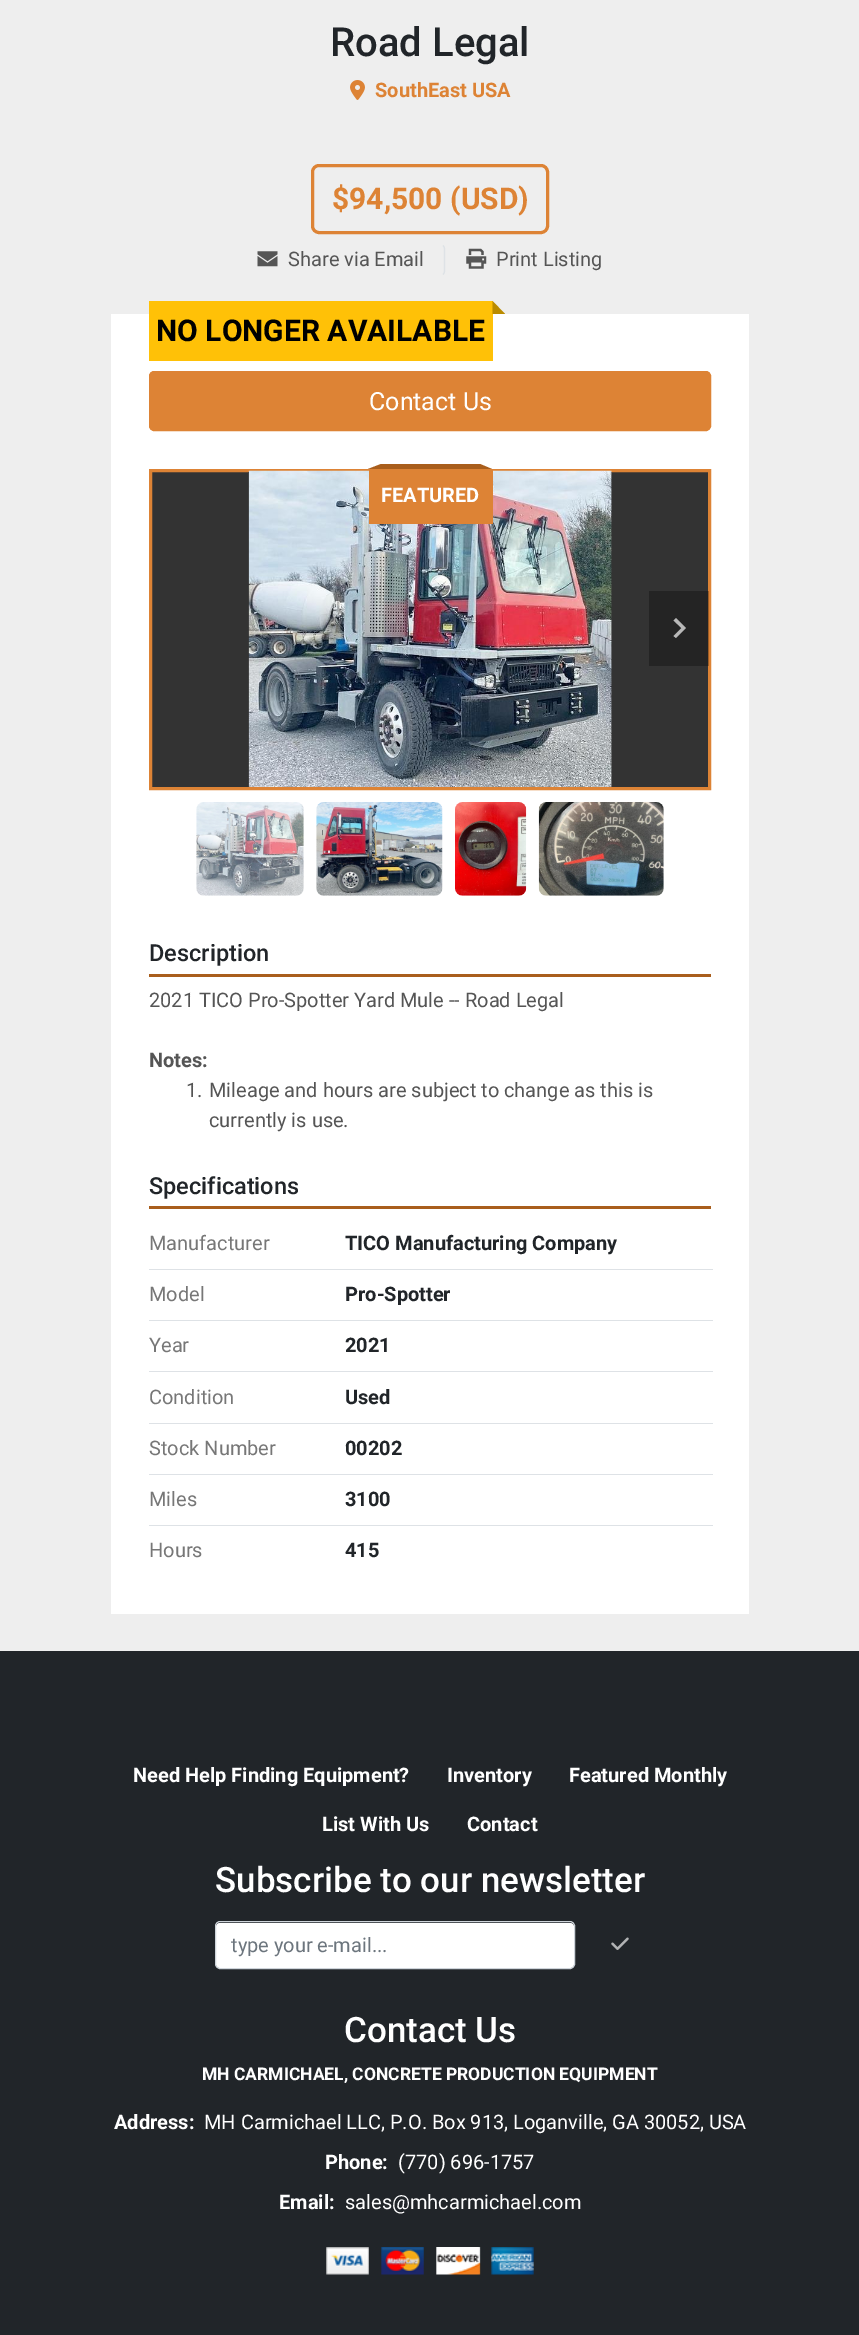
%!PS
<< /PageSize [859 2335] /PageUsesTransparency true >> setpagedevice
/rgb { dup -16 bitshift 255 div exch dup -8 bitshift 255 and 255 div exch 255 and 255 div setrgbcolor } def
/font { [ exch dup neg 0 0 3 -1 roll 0 0 ] selectfont } def
/text { moveto show } def
/alpha { dup .setfillconstantalpha .setstrokeconstantalpha } def
/roundrect { 5 dict begin { /r /h /w /y /x } { exch def } forall
  x r add y moveto x w add y 2 copy h add r arct x w add y h add x 1 index r arct
  x y h add x y r arct x y 2 copy exch w add exch r arct closepath end } def
/picture { 5 dict begin { /h /w /y /x /name } { exch def } forall
  gsave x y translate w h scale
  w h 8 [w 0 0 h 0 0] name (r) file false 3 colorimage grestore end } def
0 .pushpdf14devicefilter
0 2335 translate 1 -1 scale
4 setmiterlimit
/s1 { /Roboto-Medium 40 font 16#212529 rgb } def
/s2 { /Roboto-Bold 20 font 16#DD8335 rgb } def
/s3 { /Roboto-Bold 30 font 16#DD8335 rgb } def
/s4 { /Roboto-Regular 20 font 16#555555 rgb } def
/s5 { /Roboto-Bold 30 font 16#000000 rgb } def
/s6 { /Roboto-Regular 25 font 16#FFFFFF rgb } def
/s7 { /Roboto-Bold 20 font 16#FFFFFF rgb } def
/s8 { /Roboto-Medium 23.5 font 16#212529 rgb } def
/s9 { /Roboto-Bold 20 font 16#555555 rgb } def
/s10 { /Roboto-Regular 20 font 16#777777 rgb } def
/s11 { /Roboto-Bold 20 font 16#212529 rgb } def
/s12 { /Roboto-Medium 35 font 16#FFFFFF rgb } def
/s13 { /Roboto-Regular 20 font 16#6C757D rgb } def
/s14 { /Roboto-Bold 17.5 font 16#FFFFFF rgb } def
/s15 { /Roboto-Regular 20 font 16#FFFFFF rgb } def
16#EEEEEE rgb
0 0 859 2335 rectfill
s1
(Road Legal) 330 56 text
(pic1.raw) 350 80 15 20 picture
s2
(SouthEast USA) 375 97 text
3 setlinewidth
312.5 165.5 235 67 6.5 roundrect stroke
s3
($94,500 \(USD\)) 332 209 text
16#DEE2E6 rgb
1.2 setlinewidth
443 245.5 moveto 444 246.5 444.5 247.5 444.5 249 curveto 444.5 271 lineto 444.5 272.5 444 273.5 443 274.5 curveto stroke
(pic2.raw) 257 251 21 16 picture
s4
(Share via Email) 288 266 text
(pic3.raw) 466 248 21 21 picture
(Print Listing) 496 266 text
16#FFFFFF rgb
111 314 638 1300 rectfill
16#FFC107 rgb
149 301 344 60 rectfill
16#BA8B00 rgb
505 314 moveto 492.5 314 lineto 492.5 301 lineto closepath fill
s5
(NO LONGER AVAILABLE) 156 341 text
16#DD8335 rgb
149.5 371.5 561 59 4.5 roundrect gsave fill grestore
1 setlinewidth
stroke
s6
(Contact Us) 369 410 text
16#333333 rgb
150.5 470.5 moveto 709.5 470.5 lineto 709.5 788.5 lineto 150.5 788.5 lineto closepath gsave fill grestore
16#DD8335 rgb
3 setlinewidth
stroke
(pic4.raw) 248 470 364 317 picture
0.29 alpha
16#000000 rgb
649 591 60 75 rectfill
1 alpha
16#B8B8B8 rgb
686 628 moveto 676 638 lineto 673.5 636 lineto 681.5 628 lineto 673.5 620.5 lineto 676 618 lineto closepath fill
(pic5.raw) 196 802 108 94 picture
(pic6.raw) 316 802 127 94 picture
(pic7.raw) 455 802 72 94 picture
(pic8.raw) 538 802 126 94 picture
16#DD8335 rgb
369 470 124 54 rectfill
16#A95E1C rgb
492 469 moveto 368 469 lineto 381 464 lineto 480 464 lineto closepath fill
s7
(FEATURED) 381 502 text
16#A95E1C rgb
149 974 562 3 rectfill
s8
(Description) 149 961 text
s4
(2021 TICO Pro-Spotter Yard Mule -- Road Legal) 149 1007 text
s9
(Notes:) 149 1067 text
s4
(1.) 186 1097 text
(Mileage and hours are subject to change as this is) 209 1097 text
(currently is use.) 209 1127 text
16#A95E1C rgb
149 1206 562 3 rectfill
s8
(Specifications) 149 1194 text
16#DEE2E6 rgb
149 1269 564 1 rectfill
s10
(Manufacturer) 149 1250 text
s11
(TICO Manufacturing Company) 345 1250 text
16#DEE2E6 rgb
149 1320 564 1 rectfill
s10
(Model) 149 1301 text
s11
(Pro-Spotter) 345 1301 text
16#DEE2E6 rgb
149 1371 564 1 rectfill
s10
(Year) 149 1352 text
s11
(2021) 345 1352 text
16#DEE2E6 rgb
149 1423 564 1 rectfill
s10
(Condition) 149 1404 text
s11
(Used) 345 1404 text
16#DEE2E6 rgb
149 1474 564 1 rectfill
s10
(Stock Number) 149 1455 text
s11
(00202) 345 1455 text
16#DEE2E6 rgb
149 1525 564 1 rectfill
s10
(Miles) 149 1506 text
s11
(3100) 345 1506 text
s10
(Hours) 149 1557 text
s11
(415) 345 1557 text
0 1651 859 684 rectfill
s7
(Need Help Finding Equipment?) 133 1782 text
(Inventory) 447 1782 text
(Featured Monthly) 569 1782 text
(List With Us) 322 1831 text
(Contact) 467 1831 text
s12
(Subscribe to our newsletter) 215 1892 text
216 1923 358 45 4 roundrect fill
16#CED4DA rgb
1 setlinewidth
215.5 1921.5 359 47 4.5 roundrect stroke
s13
(type your e-mail...) 231 1952 text
(pic9.raw) 611 1937 18 13 picture
s12
(Contact Us) 344 2042 text
s14
(MH CARMICHAEL, CONCRETE PRODUCTION EQUIPMENT) 202 2080 text
s7
(Address:) 114 2129 text
s15
(MH Carmichael LLC, P.O. Box 913, Loganville, GA 30052, USA) 204 2129 text
s7
(Phone:) 325 2169 text
s15
(\(770\) 696-1757) 398 2169 text
s7
(Email:) 279 2209 text
s15
(sales@mhcarmichael.com) 345 2209 text
(pic10.raw) 326 2247 208 28 picture
.poppdf14devicefilter showpage
